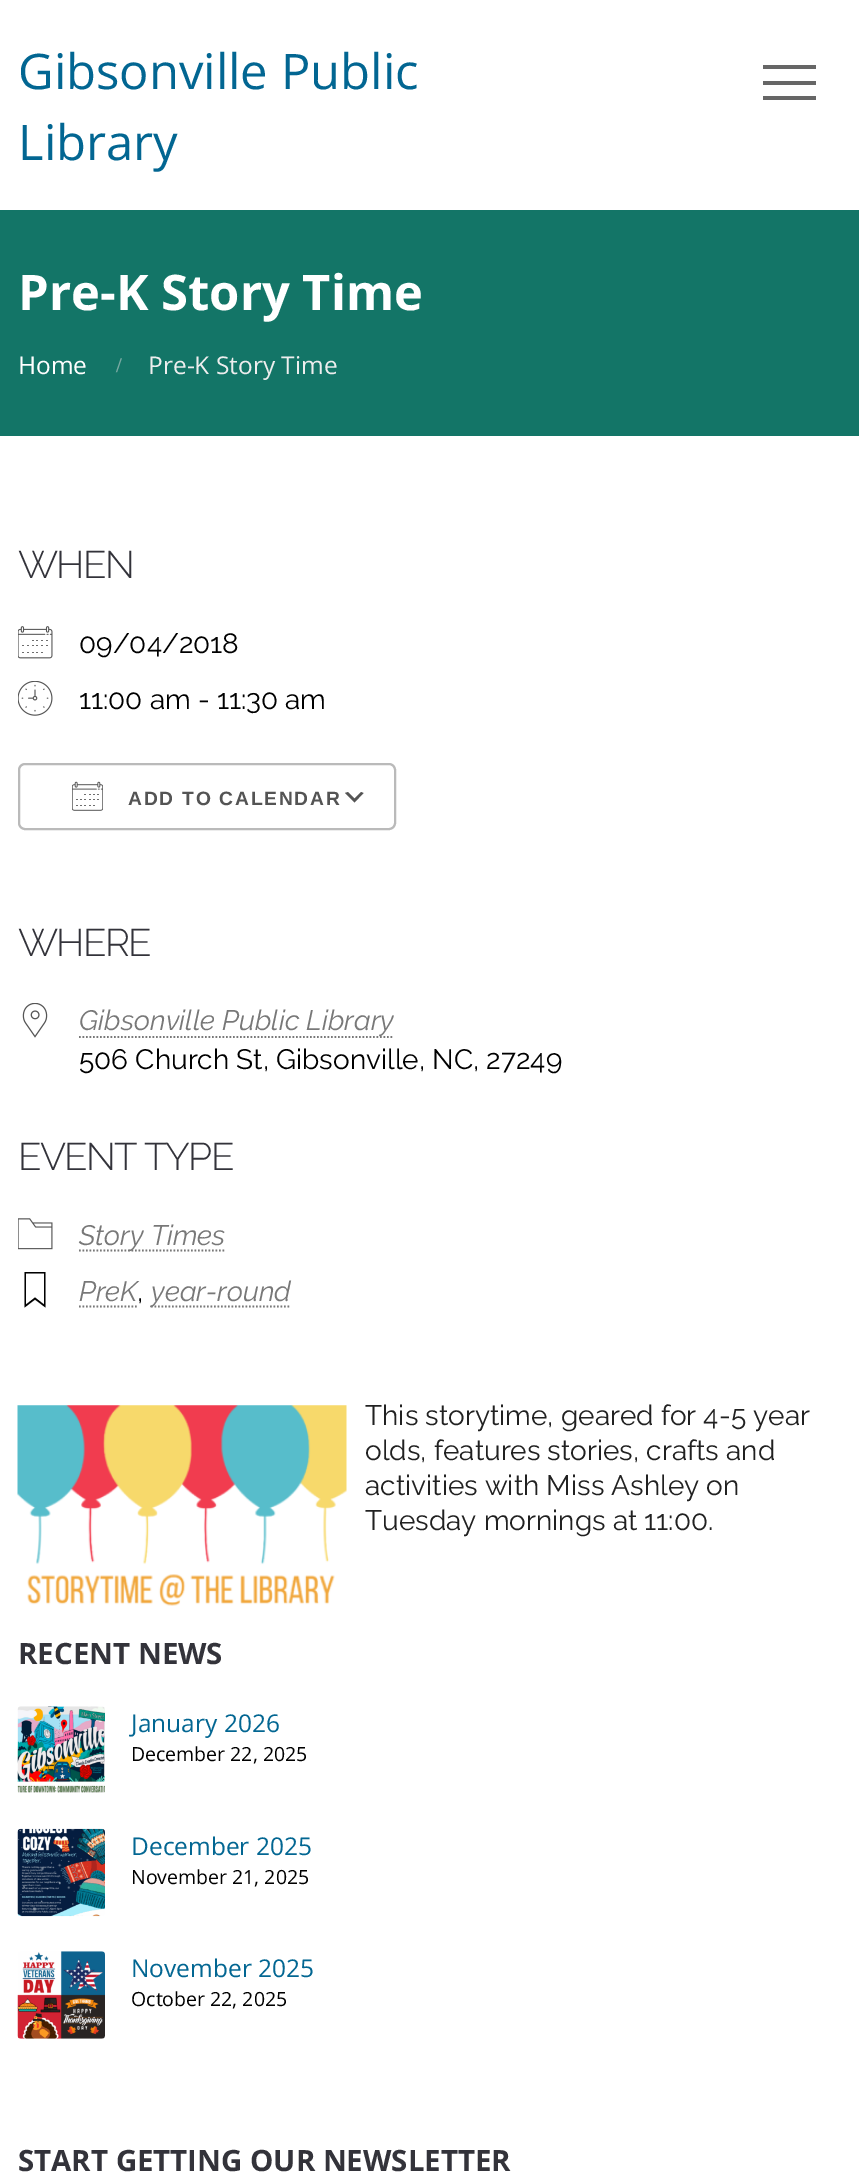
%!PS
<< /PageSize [859 2176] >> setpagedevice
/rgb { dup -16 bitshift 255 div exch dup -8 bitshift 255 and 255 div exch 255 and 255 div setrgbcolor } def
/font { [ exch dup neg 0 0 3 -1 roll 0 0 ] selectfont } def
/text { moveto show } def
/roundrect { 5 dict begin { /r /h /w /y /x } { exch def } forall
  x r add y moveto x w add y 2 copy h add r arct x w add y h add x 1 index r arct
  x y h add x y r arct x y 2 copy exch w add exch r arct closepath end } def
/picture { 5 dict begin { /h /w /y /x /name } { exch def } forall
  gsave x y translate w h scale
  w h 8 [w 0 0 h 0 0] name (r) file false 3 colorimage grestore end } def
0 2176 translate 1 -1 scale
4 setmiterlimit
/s1 { /OpenSans-Regular 49 font 16#026692 rgb } def
/s2 { /OpenSans-Bold 49 font 16#FFFFFF rgb } def
/s3 { /OpenSans-Regular 24.5 font 16#FFFFFF rgb } def
/s4 { /LiberationSerif-Bold 21 font 16#78A9A2 rgb } def
/s5 { /OpenSans-Regular 24.5 font 16#EEEEEE rgb } def
/s6 { /Raleway-Regular 28 font 16#000000 rgb } def
/s7 { /Raleway-Italic 28 font 16#787878 rgb } def
/s8 { /Raleway-Regular 28 font 16#212121 rgb } def
/s9 { /OpenSans-Bold 29.4 font 16#33333A rgb } def
/s10 { /OpenSans-Regular 24.5 font 16#026692 rgb } def
/s11 { /OpenSans-Regular 19.5 font 16#000000 rgb } def
16#FFFFFF rgb
0 0 859 2176 rectfill
s1
(Gibsonville Public) 18 89 text
(Library) 18 160 text
16#666666 rgb
763 65 53 4 rectfill
763 96 53 4 rectfill
763 81 53 4 rectfill
16#137567 rgb
0 210 859 226 rectfill
s2
(Pre-K Story Time) 18 310 text
s3
(Home) 18 374 text
s4
(/) 116 372 text
s5
(Pre-K Story Time) 148 374 text
/Raleway-Light 38.5 font
16#33333A rgb
18 578 moveto -1.75 0 (WHEN) ashow
(pic1.raw) 18 626 35 33 picture
s6
(09/04/2018) 79 653 text
(pic2.raw) 18 681 35 35 picture
(11:00 am - 11:30 am) 79 709 text
16#555555 rgb
348 792 moveto 354.5 798.5 lineto 361 792 lineto 363.5 793 lineto 354.5 802.5 lineto 345 793 lineto closepath fill
16#BABABA rgb
2 setlinewidth
19 764 376 65 6 roundrect stroke
(pic3.raw) 72 781 31 30 picture
/LiberationSans-Bold 19.25 font
16#545454 rgb
128 805 moveto 1.75 0 (ADD TO CALENDAR) ashow
/Raleway-Light 38.5 font
16#33333A rgb
18 956 moveto -1.75 0 (WHERE) ashow
(pic4.raw) 22 1003 26 35 picture
16#787878 rgb
1.8 setlinewidth
[1.75 1.75] 0 setdash
79 1037 moveto 394 1037 lineto stroke
s7
(Gibsonville Public Library) 79 1030 text
s6
(506 Church St, Gibsonville, NC, 27249) 79 1069 text
/Raleway-Light 38.5 font
16#33333A rgb
18 1170 moveto -1.75 0 (EVENT TYPE) ashow
(pic5.raw) 18 1218 35 32 picture
16#787878 rgb
79 1250.5 moveto 225.5 1250.5 lineto stroke
s7
(Story Times) 79 1245 text
16#000000 rgb
24.5 1272 moveto 24.5 1307.5 lineto 35 1299.5 lineto 45.5 1307.5 lineto 45.5 1272 lineto closepath 44 1304.5 moveto 35 1297.5 lineto 26 1304.5 lineto 26 1273.5 lineto 44 1273.5 lineto closepath fill
s7
(PreK) 79 1301 text
79 1306.5 moveto 137.5 1306.5 lineto stroke
s6
(,) 137 1301 text
16#787878 rgb
151 1306.5 moveto 291 1306.5 lineto stroke
s7
(year-round) 151 1301 text
(pic6.raw) 17 1405 330 201 picture
s8
(This storytime, geared for 4-5 year) 365 1425 text
(olds, features stories, crafts and) 365 1460 text
(activities with Miss Ashley on) 365 1495 text
(Tuesday mornings at 11:00.) 365 1530 text
s9
(RECENT NEWS) 18 1664 text
(pic7.raw) 17 1706 88 87 picture
s10
(January 2026) 131 1732 text
s11
(December 22, 2025) 131 1761 text
(pic8.raw) 17 1828 88 89 picture
s10
(December 2025) 131 1855 text
s11
(November 21, 2025) 131 1884 text
(pic9.raw) 17 1951 88 88 picture
s10
(November 2025) 131 1977 text
s11
(October 22, 2025) 131 2006 text
s9
(START GETTING OUR NEWSLETTER) 18 2171 text
showpage
